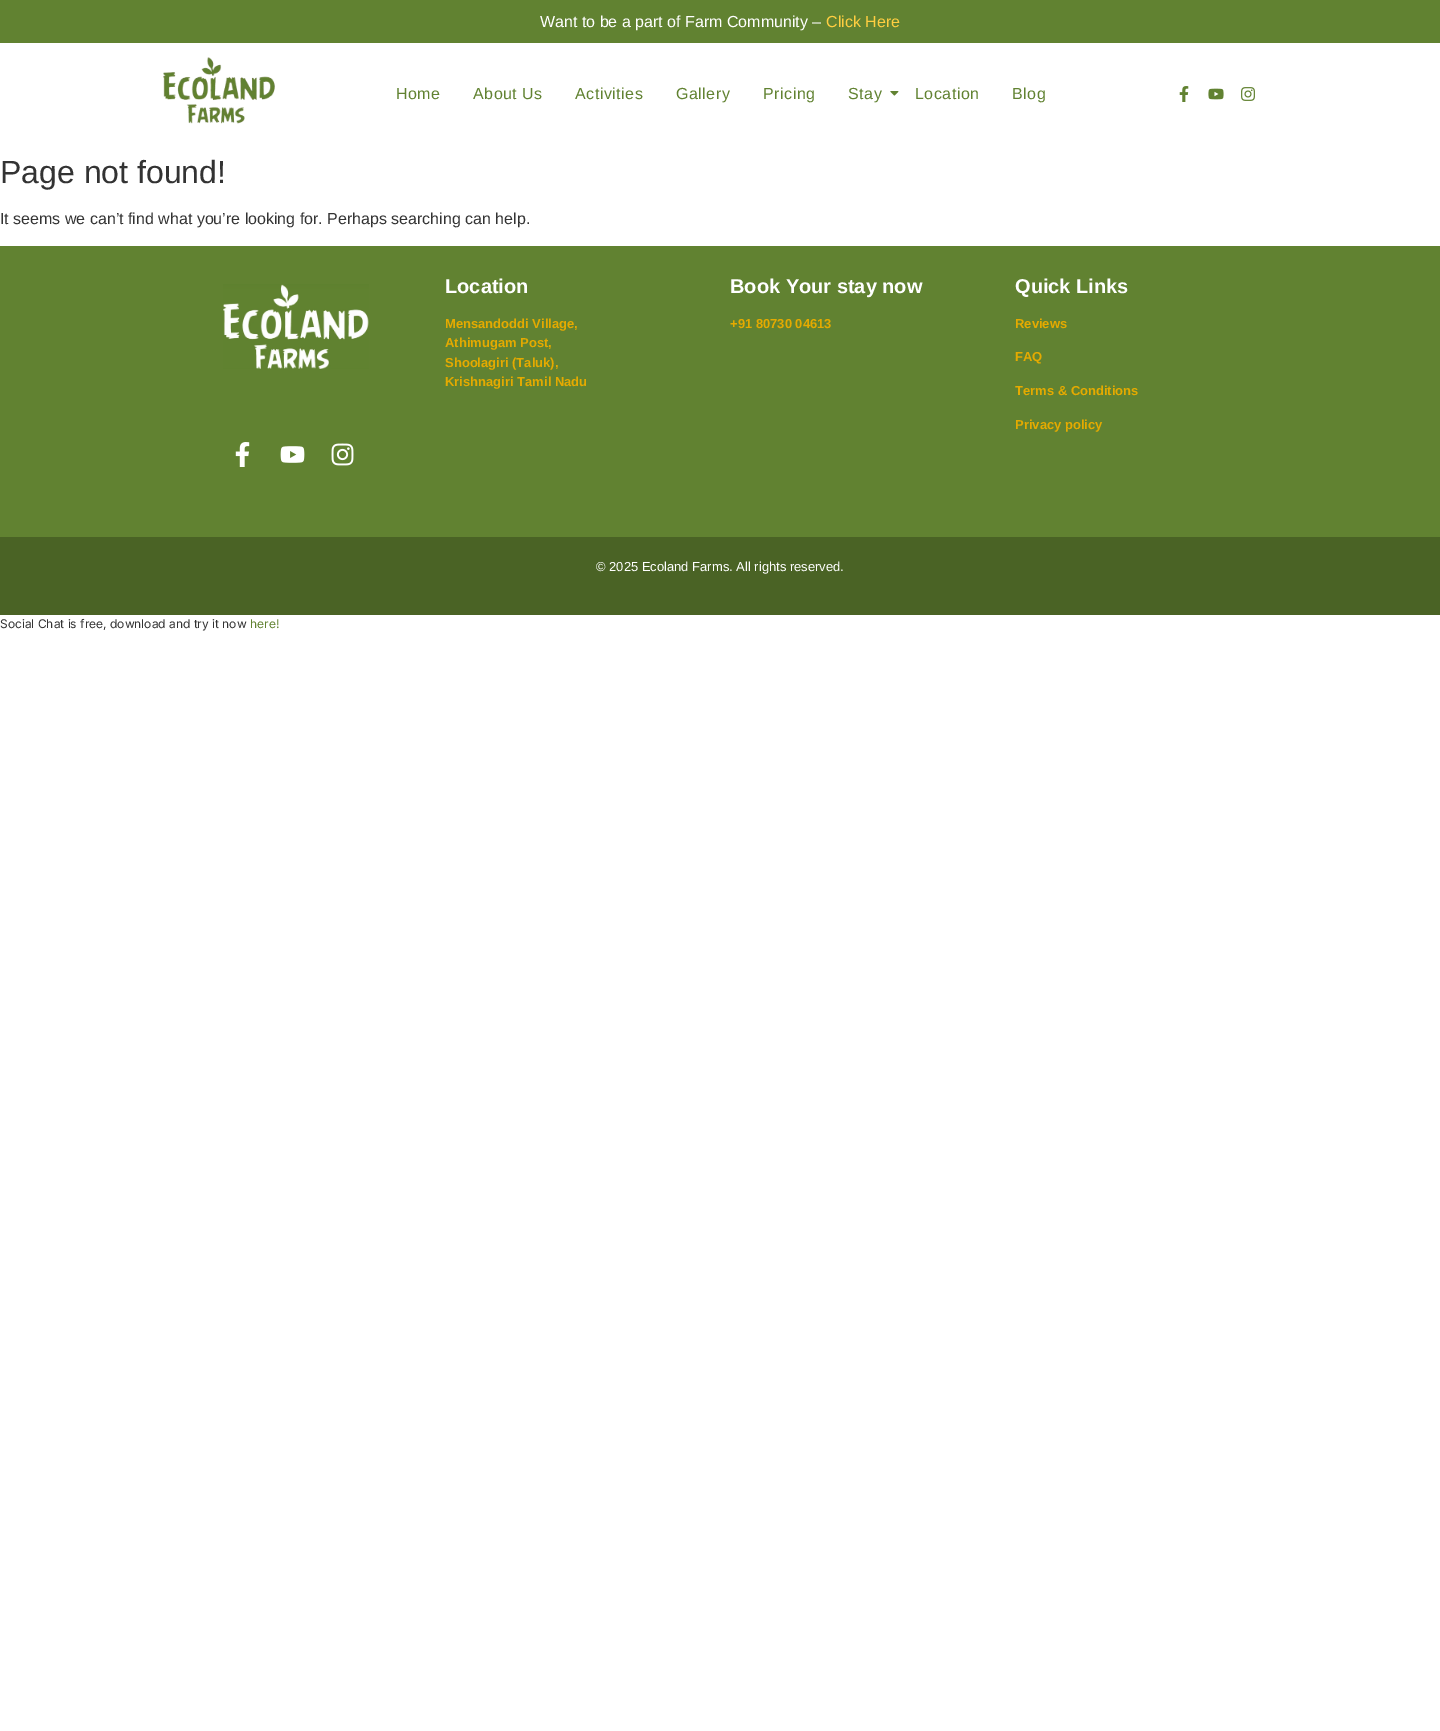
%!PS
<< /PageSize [1440 1731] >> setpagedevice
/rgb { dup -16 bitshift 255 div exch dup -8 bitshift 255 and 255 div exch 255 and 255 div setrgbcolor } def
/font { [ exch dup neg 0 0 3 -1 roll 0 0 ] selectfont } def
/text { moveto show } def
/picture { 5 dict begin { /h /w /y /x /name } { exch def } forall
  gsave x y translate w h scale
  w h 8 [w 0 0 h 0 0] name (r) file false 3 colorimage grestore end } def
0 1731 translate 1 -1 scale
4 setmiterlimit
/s1 { /LiberationSans-Regular 16 font 16#FFFFFF rgb } def
/s2 { /LiberationSans-Regular 16 font 16#FFCE41 rgb } def
/s3 { /LiberationSans-Regular 32 font 16#333333 rgb } def
/s4 { /LiberationSans-Regular 16 font 16#333333 rgb } def
/s5 { /LiberationSans-Bold 20 font 16#FFFFFF rgb } def
/s6 { /LiberationSans-Bold 13 font 16#E5AA00 rgb } def
/s7 { /LiberationSans-Regular 13 font 16#FFFFFF rgb } def
/s8 { /Inter-Regular 12 font 16#333333 rgb } def
/s9 { /Inter-Regular 12 font 16#618231 rgb } def
16#FFFFFF rgb
0 0 1440 1731 rectfill
16#618231 rgb
0 0 1440 43 rectfill
s1
(Want to be a part of Farm Community –) 540 27 text
s2
(Click Here) 826 27 text
(pic1.raw) 163 57 112 67 picture
16#618231 rgb
396 99 moveto 0.5 0 (Home) ashow
473 99 moveto 0.5 0 (About Us) ashow
575 99 moveto 0.5 0 (Activities) ashow
676 99 moveto 0.5 0 (Gallery) ashow
763 99 moveto 0.5 0 (Pricing) ashow
848 99 moveto 0.5 0 (Stay) ashow
(pic2.raw) 890 91 9 5 picture
915 99 moveto 0.5 0 (Location) ashow
1012 99 moveto 0.5 0 (Blog) ashow
(pic3.raw) 1179 86 10 16 picture
(pic4.raw) 1208 88 16 12 picture
(pic5.raw) 1241 87 14 14 picture
s3
(Page not found!) 0 183 text
s4
(It seems we can’t find what you’re looking for. Perhaps searching can help.) 0 224 text
16#618231 rgb
0 246 1440 291 rectfill
(pic6.raw) 223 284 146 85 picture
(pic7.raw) 235 442 15 25 picture
(pic8.raw) 280 446 25 17 picture
(pic9.raw) 331 443 23 23 picture
s5
(Location) 445 293 text
s6
(Mensandoddi Village,) 445 328 text
(Athimugam Post,) 445 347 text
(Shoolagiri \(Taluk\),) 445 367 text
(Krishnagiri Tamil Nadu) 445 386 text
s5
(Book Your stay now) 730 293 text
s6
(+91 80730 04613) 730 328 text
s5
(Quick Links) 1015 293 text
s6
(Reviews) 1015 328 text
(FAQ) 1015 361 text
(Terms & Conditions) 1015 395 text
(Privacy policy) 1015 429 text
16#4A6325 rgb
0 537 1440 78 rectfill
s7
(© 2025 Ecoland Farms. All rights reserved.) 596 571 text
s8
(Social Chat is free, download and try it now) 0 628 text
s9
(here!) 250 628 text
showpage
